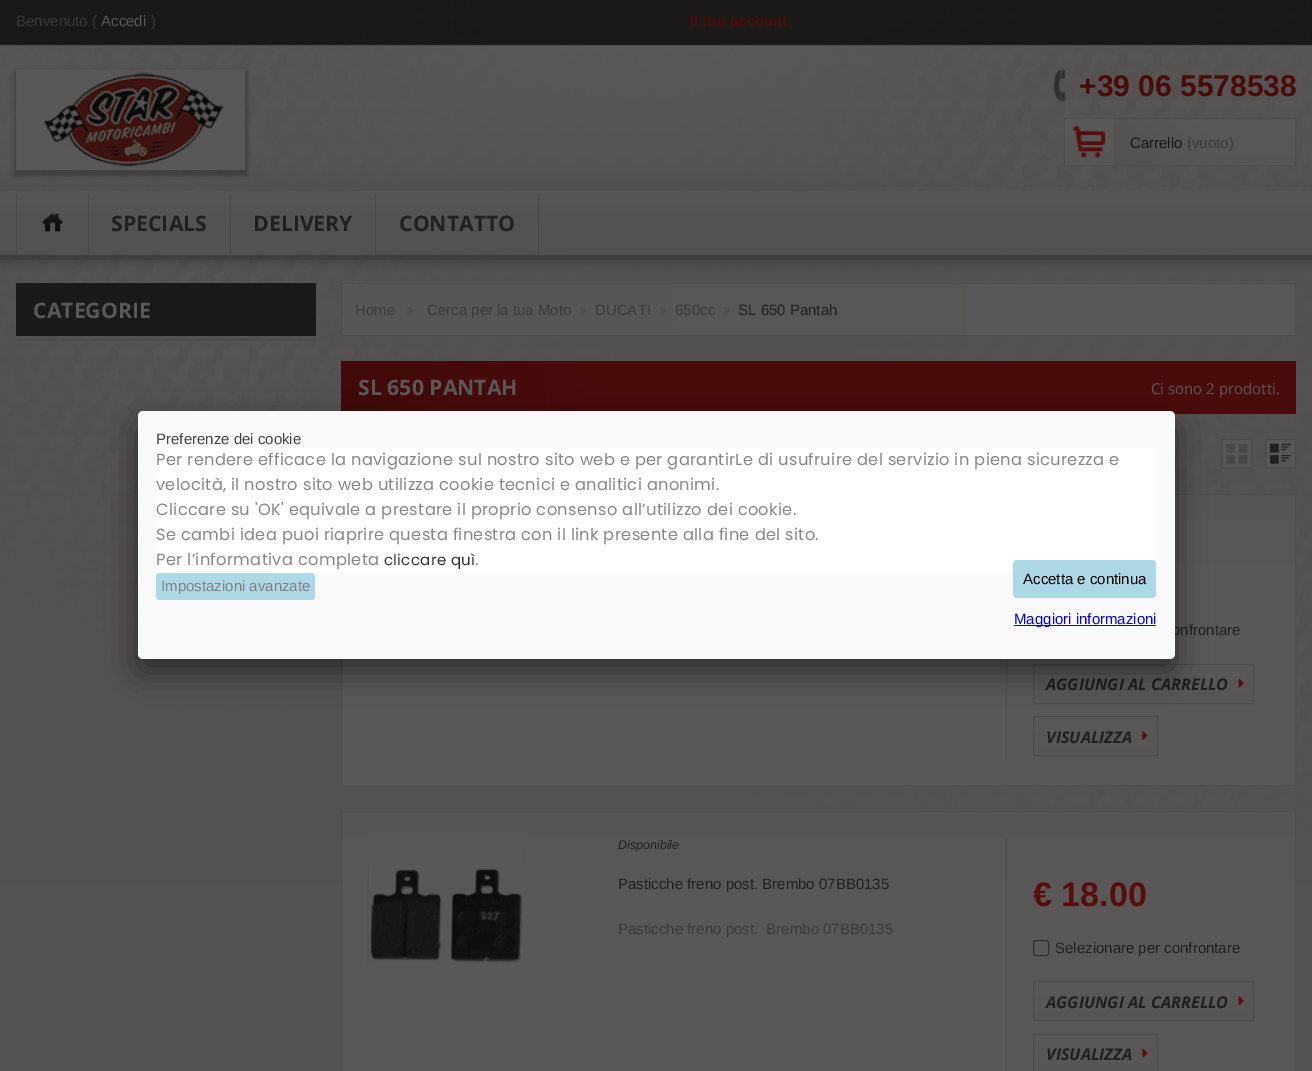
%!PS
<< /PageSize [1312 1071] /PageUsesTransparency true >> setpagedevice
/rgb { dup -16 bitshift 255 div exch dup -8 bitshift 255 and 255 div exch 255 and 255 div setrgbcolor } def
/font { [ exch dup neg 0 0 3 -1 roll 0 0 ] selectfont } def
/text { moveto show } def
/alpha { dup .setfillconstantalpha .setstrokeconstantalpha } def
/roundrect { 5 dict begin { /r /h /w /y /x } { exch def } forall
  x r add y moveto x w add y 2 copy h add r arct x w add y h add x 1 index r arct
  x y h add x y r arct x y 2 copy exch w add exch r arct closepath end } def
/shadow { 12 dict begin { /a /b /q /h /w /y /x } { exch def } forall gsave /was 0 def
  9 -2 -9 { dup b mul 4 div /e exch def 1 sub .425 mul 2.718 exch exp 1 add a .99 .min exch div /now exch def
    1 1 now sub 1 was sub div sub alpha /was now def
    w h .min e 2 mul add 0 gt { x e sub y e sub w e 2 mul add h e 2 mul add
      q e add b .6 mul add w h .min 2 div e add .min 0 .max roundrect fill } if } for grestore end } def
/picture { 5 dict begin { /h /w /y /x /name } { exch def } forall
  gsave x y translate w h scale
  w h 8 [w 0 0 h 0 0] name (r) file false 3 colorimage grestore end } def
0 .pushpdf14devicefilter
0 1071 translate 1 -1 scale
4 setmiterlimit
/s1 { /LiberationSans-Regular 15 font 16#3A3838 rgb } def
/s2 { /LiberationSans-Regular 15 font 16#5A5757 rgb } def
/s3 { /LiberationSans-Bold 15 font 16#4A0B0B rgb } def
/s4 { /LiberationSans-Regular 15 font 16#1B1818 rgb } def
/s5 { /LiberationSans-Bold 30 font 16#4A0B0B rgb } def
/s6 { /OpenSans-Bold 21.25 font 16#211F1F rgb } def
/s7 { /OpenSans-Bold 21.25 font 16#5A5757 rgb } def
/s8 { /LiberationSans-Regular 15 font 16#211F1F rgb } def
/s9 { /OpenSans-Regular 15 font 16#5A5757 rgb } def
/s10 { /OpenSans-BoldItalic 16.25 font 16#211F1F rgb } def
/s11 { /LiberationSans-Italic 12.5 font 16#211F1F rgb } def
/s12 { /LiberationSans-Bold 34 font 16#560E0E rgb } def
/s13 { /LiberationSans-Regular 15 font 16#444444 rgb } def
/s14 { /LiberationSans-Regular 15 font 16#808080 rgb } def
/s15 { /LiberationSans-Regular 15 font 16#000000 rgb } def
/s16 { /LiberationSans-Regular 15 font 16#0000EE rgb } def
16#FFFFFF rgb
0 0 1312 1071 rectfill
(pic1.raw) 0 832 1312 239 picture
(pic2.raw) 0 0 1312 832 picture
s1
(Benvenuto \() 16 26 text
s2
(Accedi) 101 26 text
s1
(\)) 151 26 text
s3
(Il tuo account) 690 26 text
(pic3.raw) 1065 117 230 50 picture
16#4E4C4C rgb
1064.5 118.5 231 47 rectstroke
(pic4.raw) 1065 118 49 40 picture
s4
(Carrello) 1130 148 text
s1
(\(vuoto\)) 1187 148 text
16#0B0808 rgb
14 71 234 105 0 2 0.25 shadow
(pic5.raw) 16 70 229 100 picture
(pic6.raw) 1053 70 12 32 picture
s5
(+39 06 5578538) 1079 96 text
16#4A4747 rgb
88 193 1 61 rectfill
16 193 1 61 rectfill
(pic7.raw) 42 212 21 20 picture
230 193 1 62 rectfill
s6
(SPECIALS) 111 231 text
16#4A4747 rgb
375 193 1 62 rectfill
s6
(DELIVERY) 253 231 text
16#4A4747 rgb
538 193 1 62 rectfill
s6
(CONTATTO) 399 231 text
16#1B1818 rgb
16 283 300 53 rectfill
s7
(CATEGORIE) 33 318 text
16#4E4C4C rgb
16 338 300 3 rectfill
16#5A5757 rgb
342 284 953 51 rectfill
(pic8.raw) 342 282 952 55 picture
16#504D4D rgb
341.5 283.5 954 52 rectstroke
s1
(Home) 355 315 text
(pic9.raw) 407 307 7 7 picture
(Cerca per la tua Moto) 427 315 text
(pic10.raw) 580 307 7 7 picture
(DUCATI) 595 315 text
(pic11.raw) 660 307 7 7 picture
(650cc) 675 315 text
(pic12.raw) 723 307 7 7 picture
s8
(SL 650 Pantah) 738 315 text
16#4A0B0B rgb
341 361 955 53 rectfill
(pic13.raw) 341 361 245 50 picture
s7
(SL 650 PANTAH) 358 395 text
s9
(Ci sono 2 prodotti.) 1151 394 text
(pic14.raw) 1221 438 32 31 picture
(pic15.raw) 1265 438 31 31 picture
342 583 953 202 rectfill
(pic16.raw) 1175 495 122 89 picture
16#504D4D rgb
341.5 494.5 954 291 rectstroke
1006 659 1 101 rectfill
s8
(onfrontare) 1172 635 text
(pic17.raw) 1032 665 221 37 picture
16#4E4C4C rgb
1033.5 664.5 220 39 rectstroke
s10
(AGGIUNGI AL CARRELLO) 1046 690 text
(pic18.raw) 1238 678 6 10 picture
(pic19.raw) 1032 718 125 37 picture
16#4E4C4C rgb
1033.5 716.5 124 39 rectstroke
s10
(VISUALIZZA) 1046 743 text
(pic20.raw) 1142 731 6 9 picture
16#5A5757 rgb
342 812 953 259 rectfill
(pic21.raw) 342 812 955 89 picture
16#504D4D rgb
341.5 811.5 954 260 rectstroke
(pic22.raw) 367 838 156 128 picture
s11
(Disponibile) 618 849 text
s8
(Pasticche freno post. Brembo 07BB0135) 618 889 text
s1
(Pasticche freno post.  Brembo 07BB0135) 618 934 text
16#504D4D rgb
1006 838 1 233 rectfill
s12
(€ 18.00) 1033 906 text
16#302D2D rgb
1033.5 940.5 15 15 2 roundrect stroke
s8
(Selezionare per confrontare) 1055 953 text
(pic17.raw) 1032 983 221 37 picture
16#4E4C4C rgb
1033.5 981.5 220 39 rectstroke
s10
(AGGIUNGI AL CARRELLO) 1046 1008 text
(pic23.raw) 1238 996 6 9 picture
(pic24.raw) 1032 1035 125 36 picture
16#4E4C4C rgb
1033.5 1034.5 124 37 rectstroke
s10
(VISUALIZZA) 1046 1060 text
(pic25.raw) 1142 1048 6 10 picture
16#000000 rgb
138 424 1037 247 5 15.5 0.5 shadow
16#F9F9F9 rgb
138 411 1037 248 5 roundrect fill
s13
(Preferenze dei cookie) 156 444 text
16#FFFFFF rgb
156 448 1000 125 rectfill
/Poppins-Regular 16.25 font
16#878787 rgb
156 465 moveto 0.33 0 (Per rendere efficace la navigazione sul nostro sito web e per garantirLe di usufruire del servizio in piena sicurezza e) ashow
156 490 moveto 0.33 0 (velocità, il nostro sito web utilizza cookie tecnici e analitici anonimi.) ashow
156 515 moveto 0.33 0 (Cliccare su 'OK' equivale a prestare il proprio consenso all’utilizzo dei cookie.) ashow
156 540 moveto 0.33 0 (Se cambi idea puoi riaprire questa finestra con il link presente alla fine del sito.) ashow
156 565 moveto 0.33 0 (Per l’informativa completa) ashow
/Poppins-Regular 15 font
16#333333 rgb
384 565 moveto 0.33 0 (cliccare quì) ashow
/Poppins-Regular 16.25 font
16#878787 rgb
475 565 moveto 0.33 0 (.) ashow
16#ADD8E6 rgb
156 573 159 27 4 roundrect fill
s14
(Impostazioni avanzate) 161 591 text
16#ADD8E6 rgb
1013 560 143 38 4 roundrect fill
s15
(Accetta e continua) 1023 584 text
16#0000EE rgb
1014 625 142 1 rectfill
(Maggiori informazioni) 1014 624 text
.poppdf14devicefilter showpage
